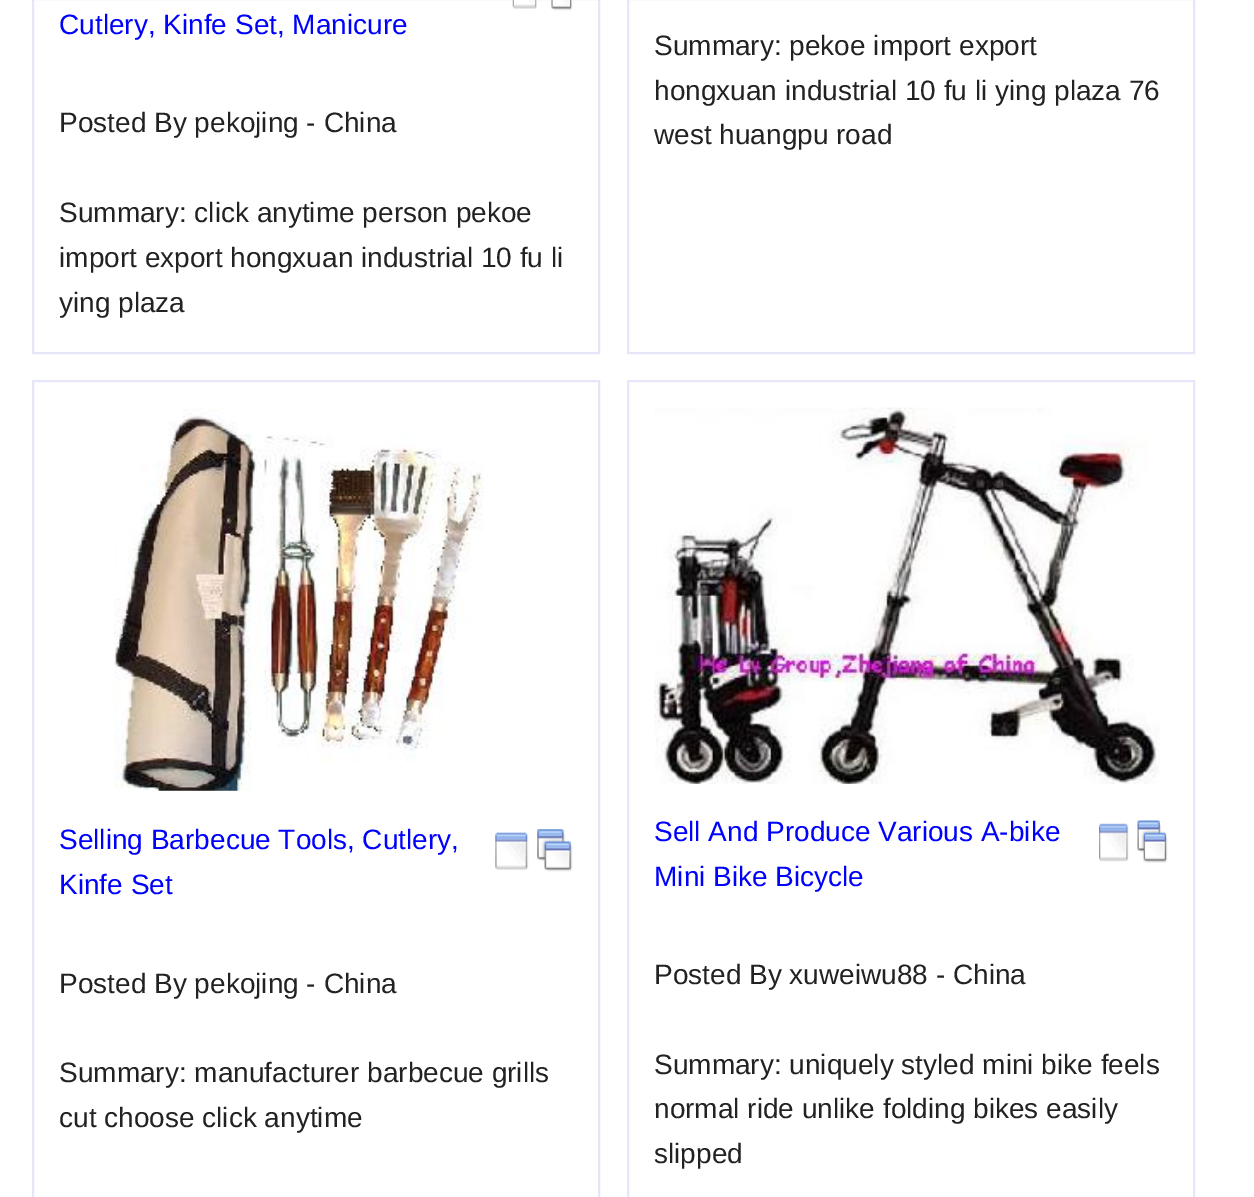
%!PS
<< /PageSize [1254 1197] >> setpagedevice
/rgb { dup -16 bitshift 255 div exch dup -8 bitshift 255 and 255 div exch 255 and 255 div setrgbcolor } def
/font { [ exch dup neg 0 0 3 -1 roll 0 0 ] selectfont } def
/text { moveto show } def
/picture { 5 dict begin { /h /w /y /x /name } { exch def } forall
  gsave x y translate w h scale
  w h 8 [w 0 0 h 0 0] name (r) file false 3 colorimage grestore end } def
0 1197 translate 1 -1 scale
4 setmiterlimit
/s1 { /LiberationSans-Regular 28 font 16#0000FF rgb } def
/s2 { /LiberationSans-Regular 28 font 16#222222 rgb } def
16#FFFFFF rgb
0 0 1254 1197 rectfill
16#E6E6FA rgb
2 setlinewidth
33 -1 566 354 rectstroke
(pic1.raw) 512 0 25 9 picture
(pic2.raw) 550 0 23 11 picture
s1
(Cutlery, Kinfe Set, Manicure) 59 34 text
s2
(Posted By pekojing - China) 59 132 text
(Summary: click anytime person pekoe) 59 222 text
(import export hongxuan industrial 10 fu li) 59 267 text
(ying plaza) 59 312 text
16#E6E6FA rgb
628 -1 566 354 rectstroke
s2
(Summary: pekoe import export) 654 55 text
(hongxuan industrial 10 fu li ying plaza 76) 654 100 text
(west huangpu road) 654 144 text
16#E6E6FA rgb
33 381 566 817 rectstroke
(pic3.raw) 114 407 370 384 picture
s1
(Selling Barbecue Tools, Cutlery,) 59 849 text
(Kinfe Set) 59 894 text
(pic4.raw) 495 832 34 38 picture
(pic5.raw) 537 829 36 43 picture
s2
(Posted By pekojing - China) 59 993 text
(Summary: manufacturer barbecue grills) 59 1082 text
(cut choose click anytime) 59 1127 text
16#E6E6FA rgb
628 381 566 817 rectstroke
(pic6.raw) 654 407 506 377 picture
s1
(Sell And Produce Various A-bike) 654 841 text
(Mini Bike Bicycle) 654 886 text
(pic7.raw) 1099 823 30 39 picture
(pic8.raw) 1137 820 31 43 picture
s2
(Posted By xuweiwu88 - China) 654 984 text
(Summary: uniquely styled mini bike feels) 654 1074 text
(normal ride unlike folding bikes easily) 654 1118 text
(slipped) 654 1163 text
showpage
